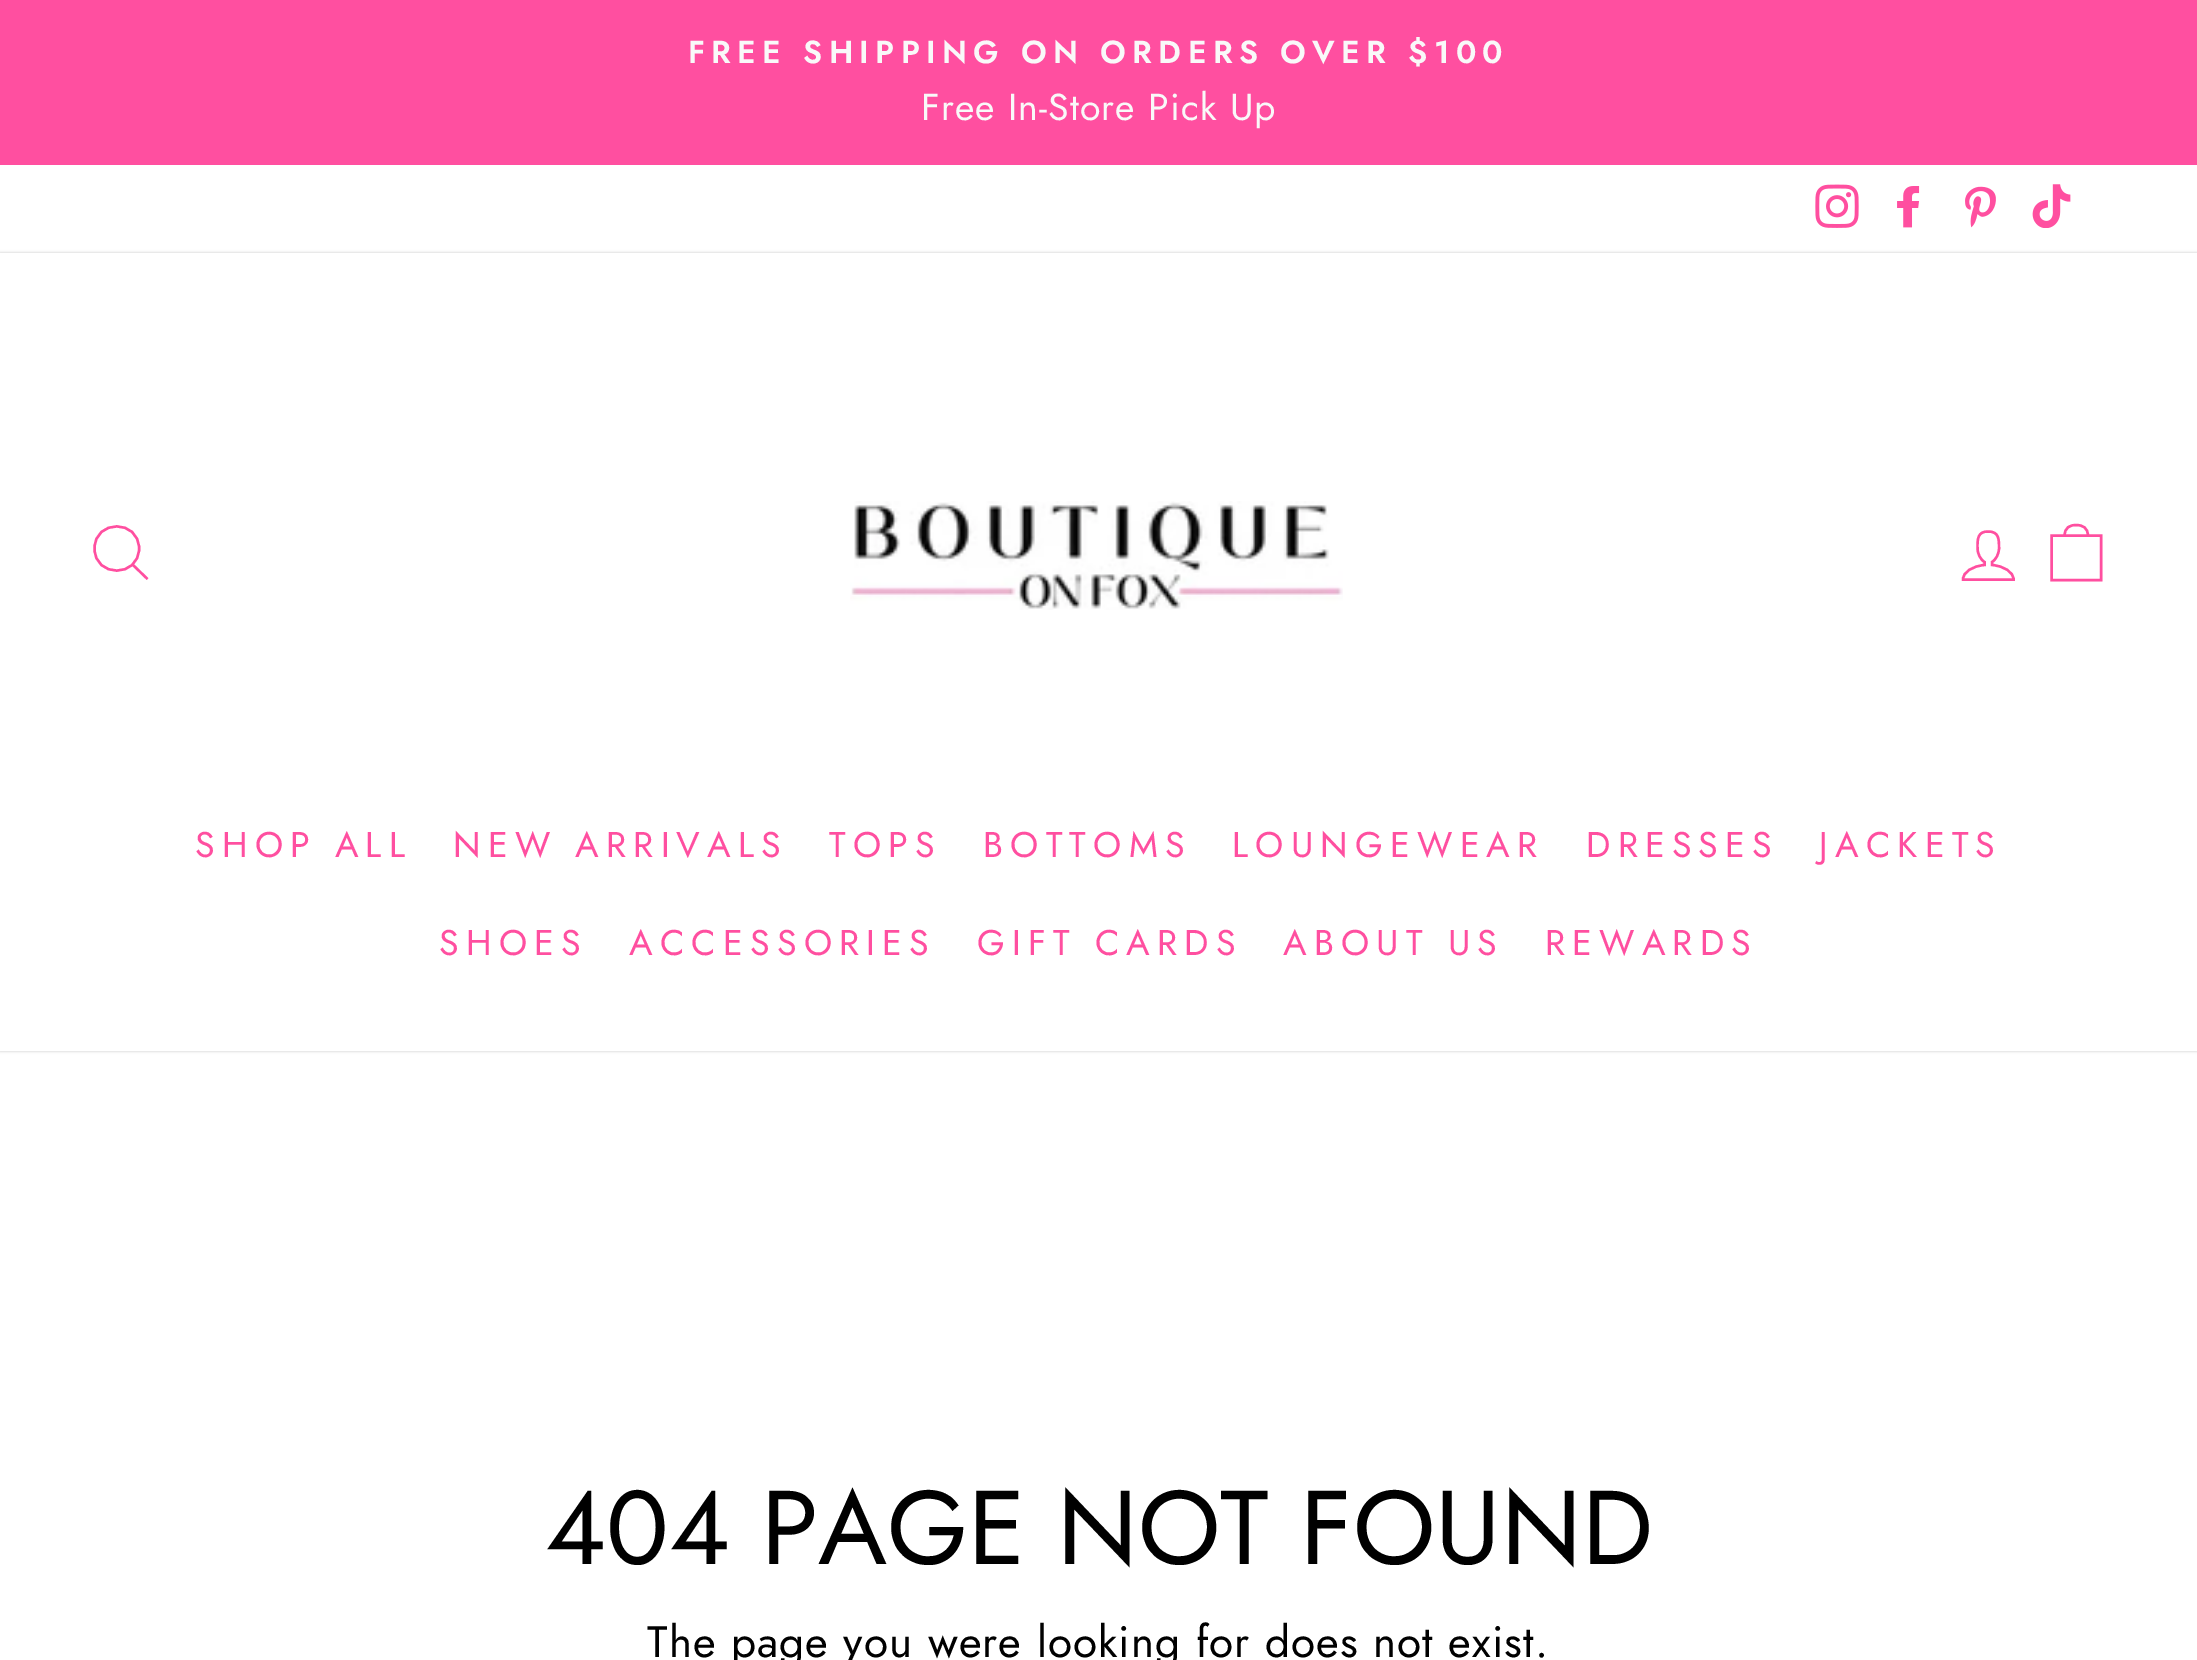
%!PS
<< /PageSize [2197 1660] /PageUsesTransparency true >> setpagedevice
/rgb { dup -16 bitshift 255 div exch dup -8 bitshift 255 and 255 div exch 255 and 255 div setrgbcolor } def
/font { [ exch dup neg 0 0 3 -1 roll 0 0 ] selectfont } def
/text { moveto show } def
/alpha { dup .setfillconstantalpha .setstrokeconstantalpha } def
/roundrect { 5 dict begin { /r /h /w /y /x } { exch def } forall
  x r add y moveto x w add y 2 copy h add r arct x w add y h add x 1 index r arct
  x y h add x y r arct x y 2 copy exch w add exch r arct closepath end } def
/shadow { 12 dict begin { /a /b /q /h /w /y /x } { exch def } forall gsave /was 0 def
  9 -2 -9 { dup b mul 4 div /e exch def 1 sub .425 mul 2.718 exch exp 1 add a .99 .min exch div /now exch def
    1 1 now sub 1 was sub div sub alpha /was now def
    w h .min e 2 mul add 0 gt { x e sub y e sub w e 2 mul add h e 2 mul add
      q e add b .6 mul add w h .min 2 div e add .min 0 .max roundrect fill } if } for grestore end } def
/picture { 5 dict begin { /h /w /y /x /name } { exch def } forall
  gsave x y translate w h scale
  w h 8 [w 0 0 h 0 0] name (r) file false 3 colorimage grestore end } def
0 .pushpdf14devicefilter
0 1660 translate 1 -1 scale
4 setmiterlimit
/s1 { /Jost-Regular 104.5 font 16#000000 rgb } def
16#FFFFFF rgb
0 0 2197 1660 rectfill
16#FF4FA0 rgb
0 0 2197 165 rectfill
/Jost-SemiBold 31.8 font
16#F9F9F9 rgb
688 63 moveto 6.35 0 (FREE SHIPPING ON ORDERS OVER $100) ashow
/Jost-Regular 37.5 font
921 120 moveto 1.1 0 (Free In-Store Pick Up) ashow
(pic1.raw) 1815 184 44 44 picture
(pic2.raw) 1897 186 23 42 picture
(pic3.raw) 1965 186 31 42 picture
(pic4.raw) 2032 184 39 44 picture
16#000000 rgb
0 253 2197 798 0 1.5 0.2 shadow
16#FFFFFF rgb
0 253 2197 798 rectfill
16#FF4FA0 rgb
2.4 setlinewidth
139 548.5 moveto 139 578 94.5 578 94.5 548.5 curveto 94.5 519 139 519 139 548.5 curveto closepath 147.5 579 moveto 133 565 lineto stroke
(pic5.raw) 850 501 493 109 picture
1992 565 moveto 1992 562 lineto 1996 559.5 1999 554 1999 548 curveto 1999 539 1999 531.5 1988 531.5 curveto 1977.5 531.5 1977.5 539 1977.5 548 curveto 1977.5 554 1980.5 559.5 1984.5 562 curveto 1984.5 565 lineto 1972.5 566 1963 572 1963 579.5 curveto 2013.5 579.5 lineto 2013.5 572 2004 566 1992 565 curveto closepath stroke
2051.5 535.5 moveto 2101 535.5 lineto 2101 580 lineto 2051.5 580 lineto closepath 2064.5 536 moveto 2064.5 527.5 2070 525 2076 525 curveto 2082.5 525 2088 527.5 2088 536 curveto stroke
/Jost-Regular 35.75 font
195 857 moveto 7.2 0 (SHOP ALL) ashow
453 857 moveto 7.2 0 (NEW ARRIVALS) ashow
829 857 moveto 7.2 0 (TOPS) ashow
983 857 moveto 7.2 0 (BOTTOMS) ashow
1232 857 moveto 7.2 0 (LOUNGEWEAR) ashow
1586 857 moveto 7.2 0 (DRESSES) ashow
1819 857 moveto 7.2 0 (JACKETS) ashow
439 955 moveto 7.2 0 (SHOES) ashow
629 955 moveto 7.2 0 (ACCESSORIES) ashow
977 955 moveto 7.2 0 (GIFT CARDS) ashow
1283 955 moveto 7.2 0 (ABOUT US) ashow
1545 955 moveto 7.2 0 (REWARDS) ashow
s1
(404 PAGE NOT FOUND) 545 1564 text
/Jost-Regular 44 font
647 1657 moveto 1.1 0 (The page you were looking for does not exist.) ashow
.poppdf14devicefilter showpage
